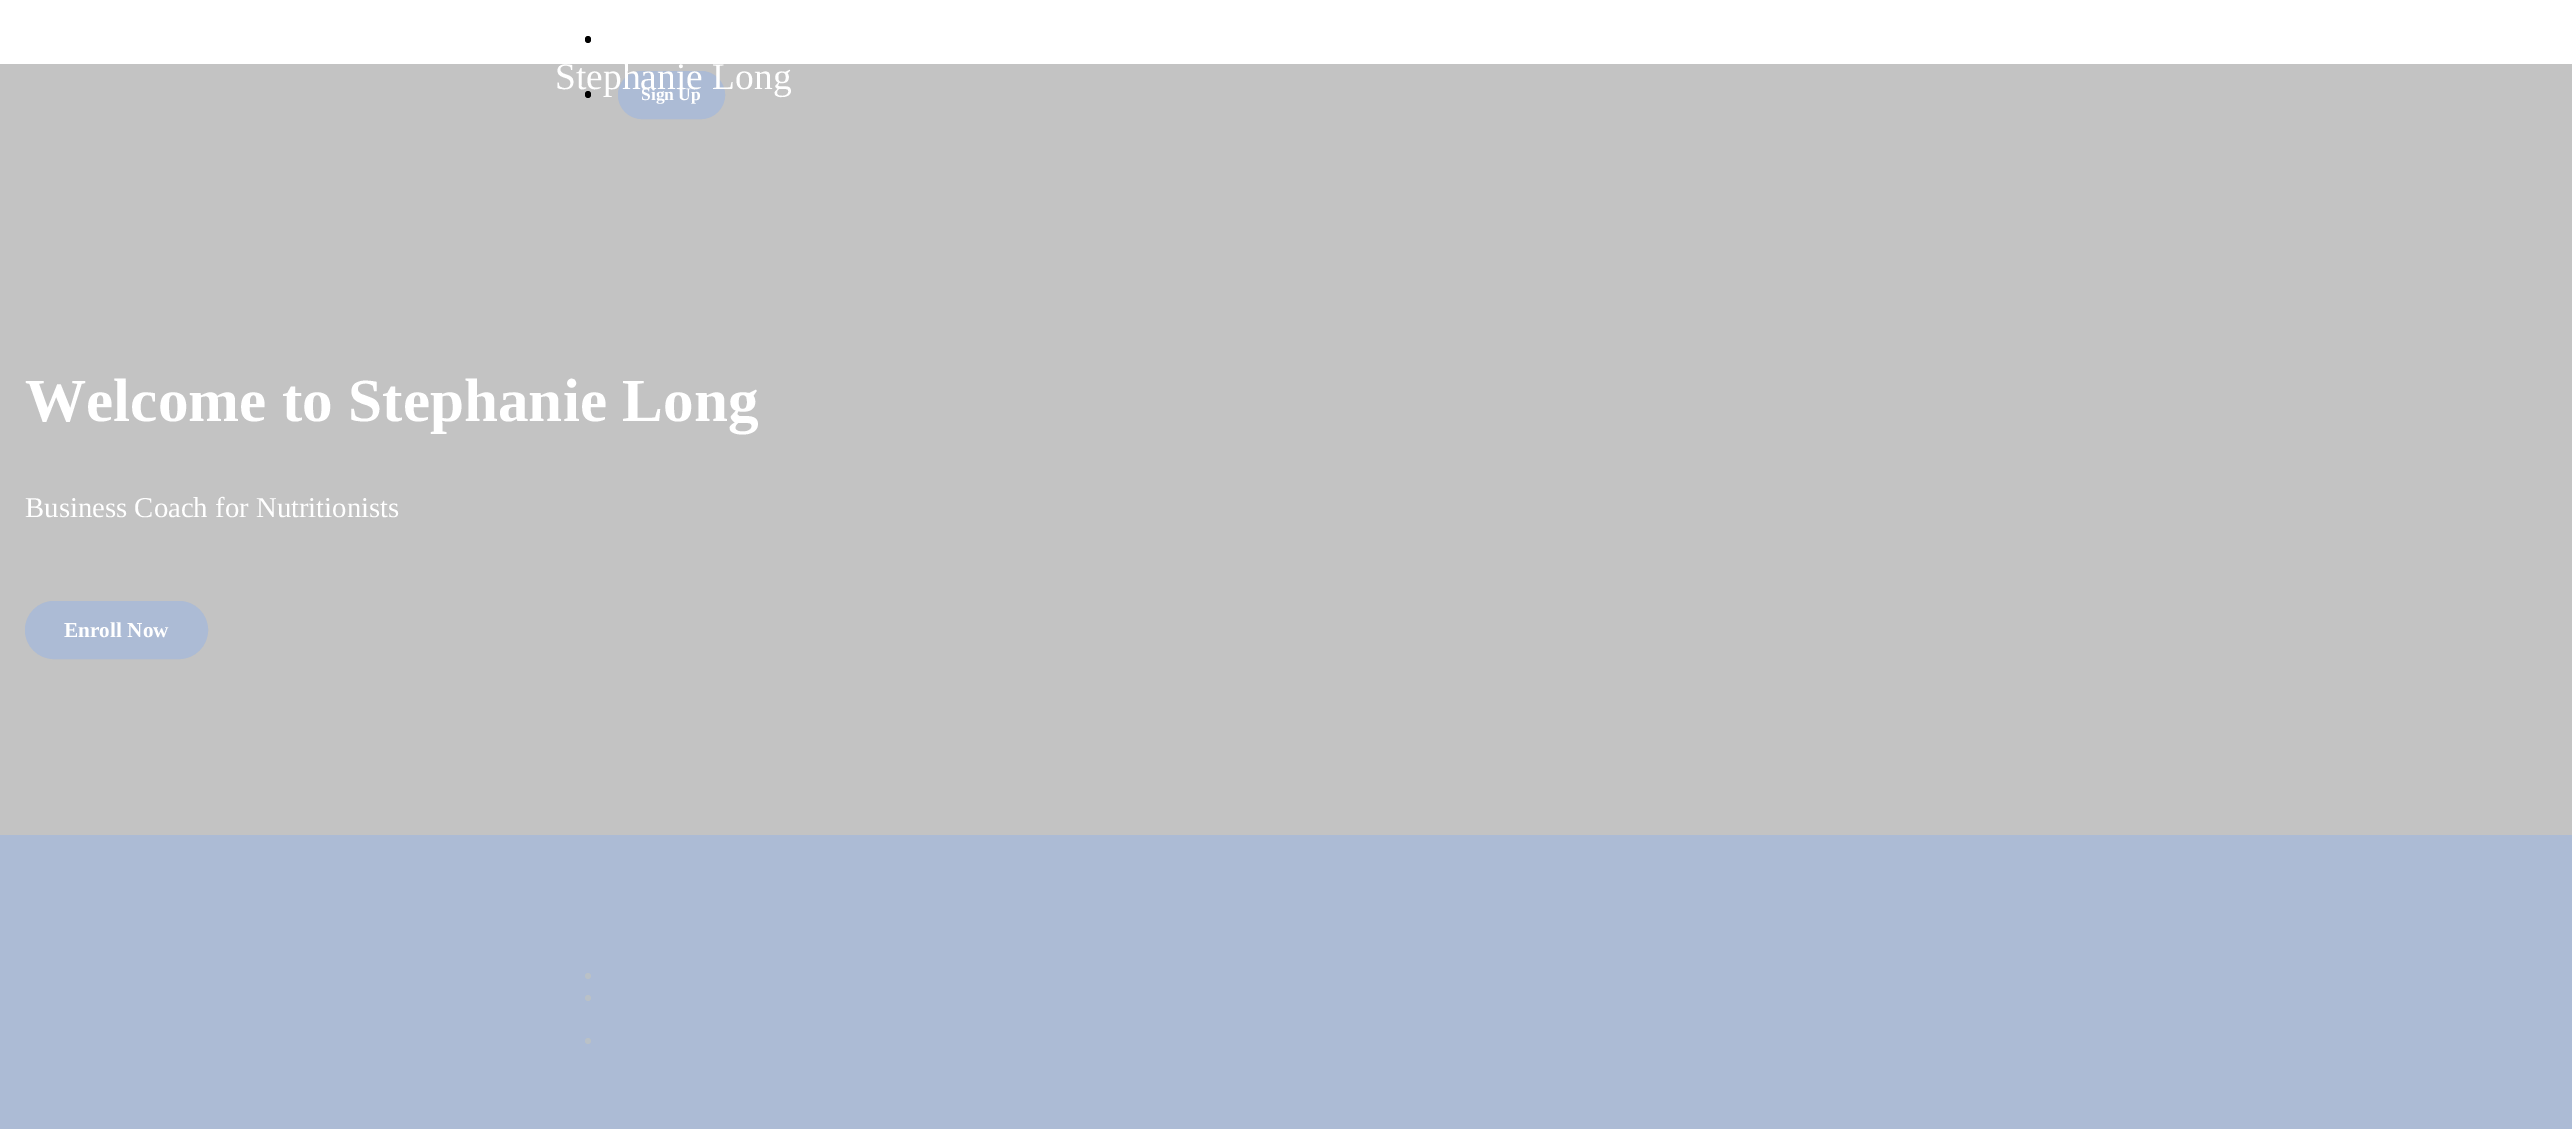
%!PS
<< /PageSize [2572 1129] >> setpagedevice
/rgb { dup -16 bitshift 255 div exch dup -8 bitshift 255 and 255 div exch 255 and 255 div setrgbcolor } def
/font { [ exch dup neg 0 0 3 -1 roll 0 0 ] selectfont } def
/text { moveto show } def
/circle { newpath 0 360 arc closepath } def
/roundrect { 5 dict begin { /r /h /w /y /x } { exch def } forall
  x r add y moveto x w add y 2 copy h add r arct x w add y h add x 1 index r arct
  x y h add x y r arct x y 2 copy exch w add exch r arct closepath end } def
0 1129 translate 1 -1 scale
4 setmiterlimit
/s1 { /LiberationSerif-Bold 17.5 font 16#FFFFFF rgb } def
/s2 { /LiberationSerif-Regular 37.5 font 16#FFFFFF rgb } def
/s3 { /LiberationSerif-Bold 61.25 font 16#FFFFFF rgb } def
/s4 { /LiberationSerif-Regular 28.75 font 16#FFFFFF rgb } def
/s5 { /LiberationSerif-Bold 21.25 font 16#FFFFFF rgb } def
16#FFFFFF rgb
0 0 2572 1129 rectfill
16#C3C3C3 rgb
0 64 2572 771 rectfill
16#000000 rgb
585 91 6 7 3 roundrect fill
16#ACBBD5 rgb
618.5 71.5 106 47 23.5 roundrect gsave fill grestore
stroke
s1
(Sign Up) 641 100 text
s2
(Stephanie Long) 555 89 text
16#000000 rgb
585 36 6 7 3 roundrect fill
s3
(Welcome to Stephanie Long) 25 421 text
s4
(Business Coach for Nutritionists) 25 517 text
16#ACBBD5 rgb
25.5 601.5 182 57 28.5 roundrect gsave fill grestore
stroke
s5
(Enroll Now) 64 637 text
16#ACBBD5 rgb
0 835 2572 294 rectfill
16#BAC1C7 rgb
588 976 3 circle fill
588 998 3 circle fill
588 1041 3 circle fill
showpage
